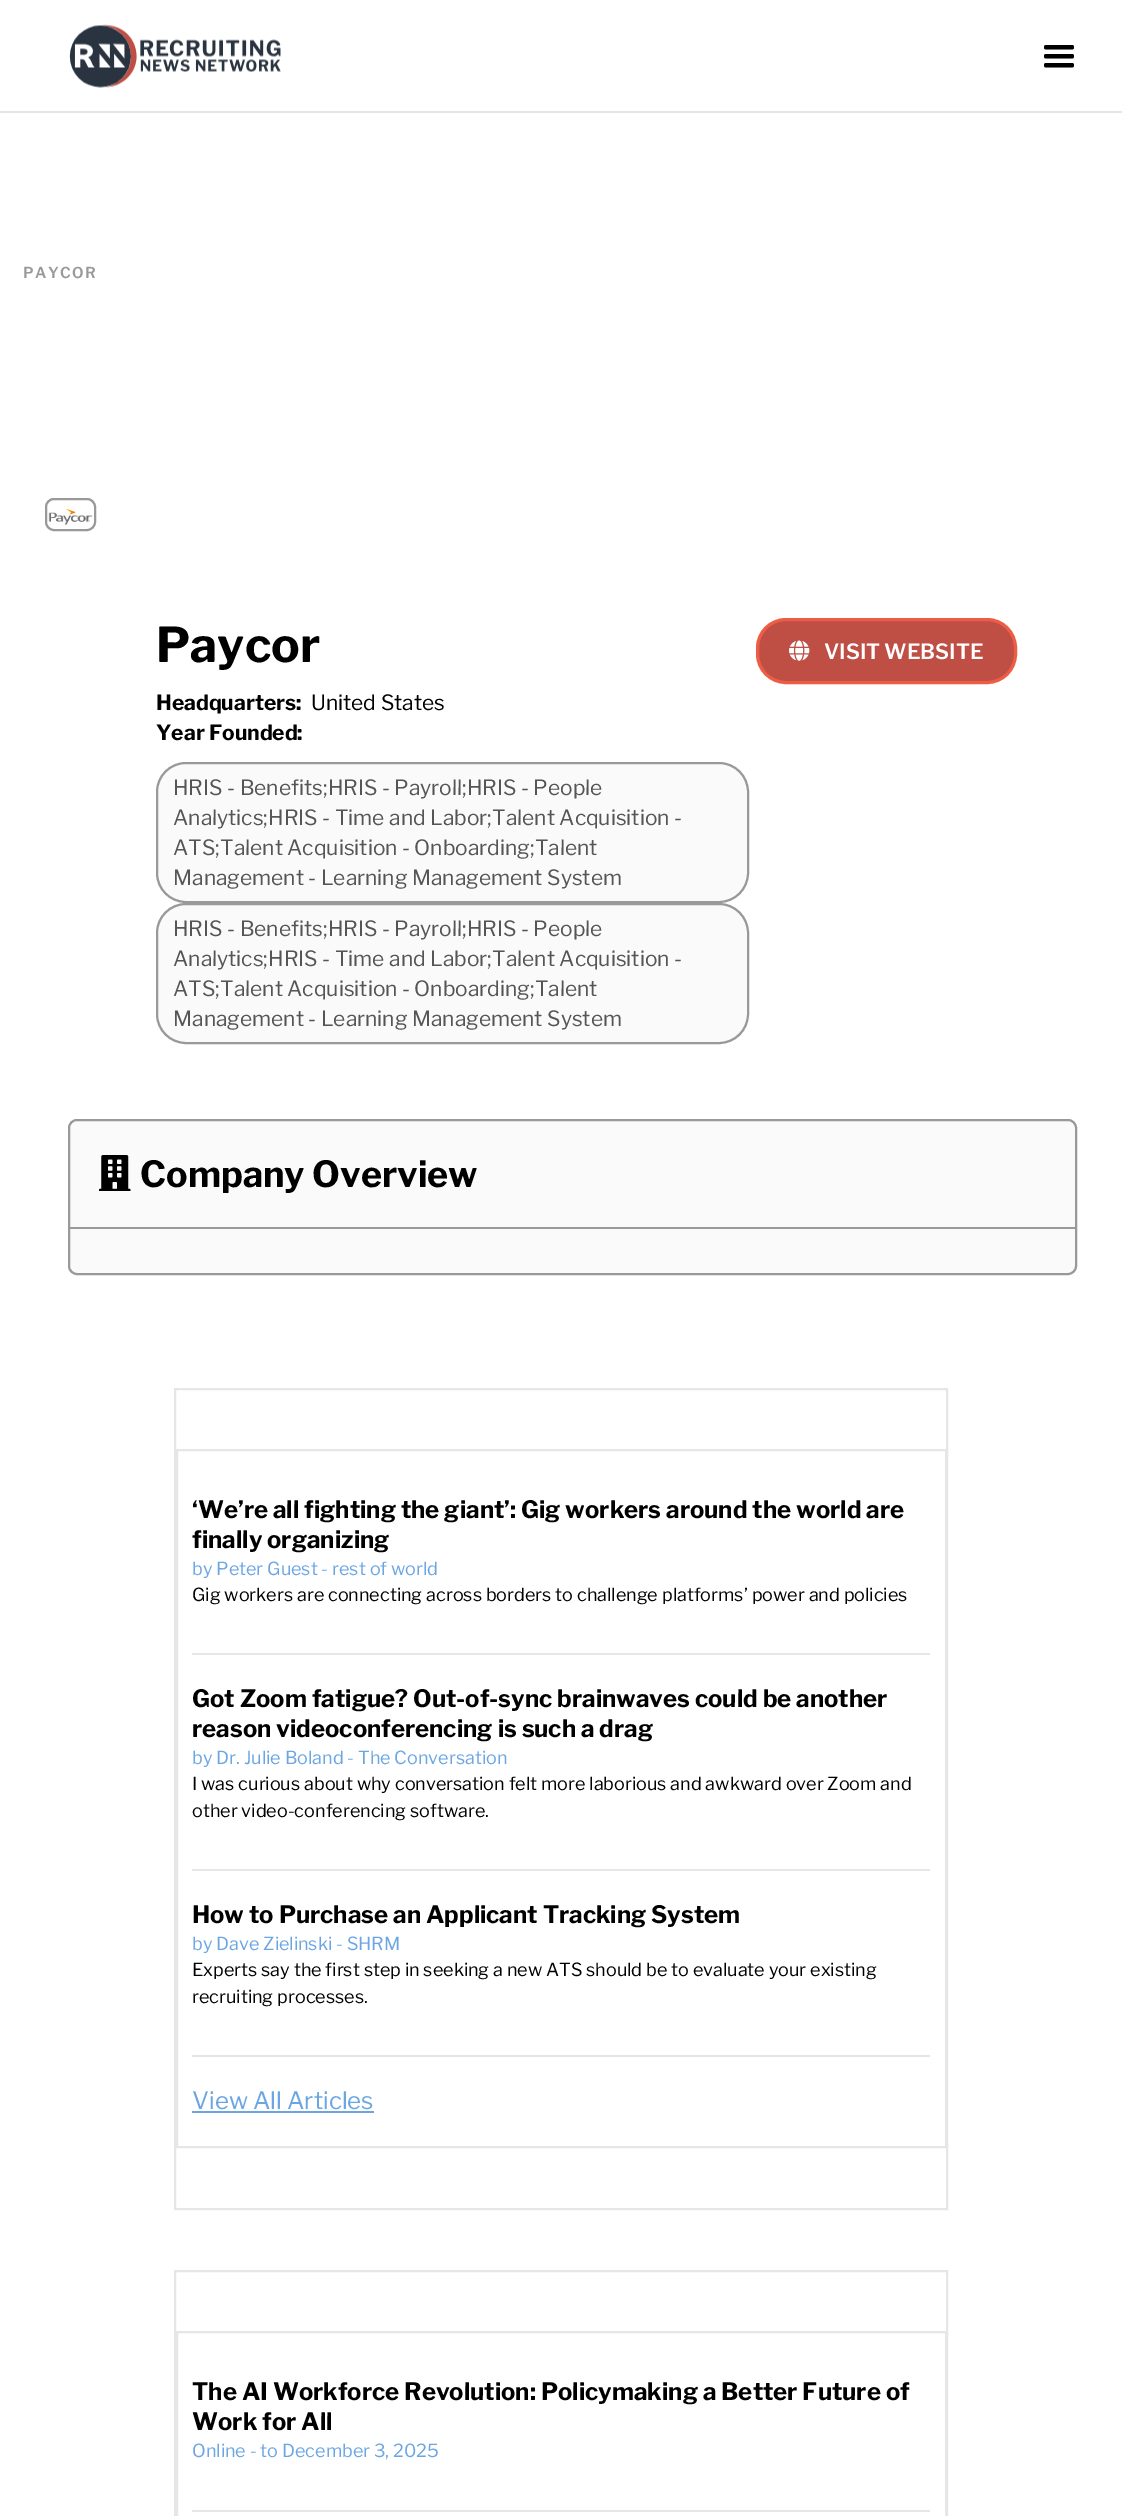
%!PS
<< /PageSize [1122 2516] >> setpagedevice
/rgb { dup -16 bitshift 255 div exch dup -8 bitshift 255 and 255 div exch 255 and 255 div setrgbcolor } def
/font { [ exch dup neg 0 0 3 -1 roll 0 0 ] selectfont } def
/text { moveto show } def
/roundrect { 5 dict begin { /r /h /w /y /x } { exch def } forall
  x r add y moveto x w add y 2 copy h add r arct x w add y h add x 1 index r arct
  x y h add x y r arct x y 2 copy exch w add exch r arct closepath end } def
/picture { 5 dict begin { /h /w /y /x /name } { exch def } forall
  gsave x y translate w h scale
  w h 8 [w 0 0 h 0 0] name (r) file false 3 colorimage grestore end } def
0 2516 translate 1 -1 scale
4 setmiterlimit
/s1 { /LibreFranklin-Bold 48 font 16#000000 rgb } def
/s2 { /LibreFranklin-Bold 21 font 16#000000 rgb } def
/s3 { /LibreFranklin-Regular 21 font 16#000000 rgb } def
/s4 { /LibreFranklin-Regular 21 font 16#555555 rgb } def
/s5 { /LibreFranklin-SemiBold 21 font 16#FFFFFF rgb } def
/s6 { /LibreFranklin-Bold 36 font 16#000000 rgb } def
/s7 { /LibreFranklin-Bold 24 font 16#000000 rgb } def
/s8 { /LibreFranklin-Regular 18 font 16#6BA6E3 rgb } def
/s9 { /LibreFranklin-Regular 18 font 16#000000 rgb } def
/s10 { /LibreFranklin-Regular 24 font 16#6BA6E3 rgb } def
16#FFFFFF rgb
0 0 1122 2516 rectfill
16#E6E6E6 rgb
0 111 1122 2 rectfill
(pic1.raw) 69 24 212 64 picture
(pic2.raw) 1044 45 30 23 picture
/LibreFranklin-SemiBold 15 font
16#999999 rgb
23 278 moveto 1.5 0 (PAYCOR) ashow
2 setlinewidth
46 499 49 31 8 roundrect stroke
(pic3.raw) 48 508 45 17 picture
s1
(Paycor) 156 662 text
s2
(Headquarters:) 156 710 text
s3
(United States) 311 710 text
s2
(Year Founded:) 156 740 text
16#FAFAFA rgb
157 763 591 139 29 roundrect gsave fill grestore
16#999999 rgb
stroke
s4
(HRIS - Benefits;HRIS - Payroll;HRIS - People) 173 795 text
(Analytics;HRIS - Time and Labor;Talent Acquisition -) 173 825 text
(ATS;Talent Acquisition - Onboarding;Talent) 173 855 text
(Management - Learning Management System) 173 885 text
16#FAFAFA rgb
157 904 591 139 29 roundrect gsave fill grestore
16#999999 rgb
stroke
s4
(HRIS - Benefits;HRIS - Payroll;HRIS - People) 173 936 text
(Analytics;HRIS - Time and Labor;Talent Acquisition -) 173 966 text
(ATS;Talent Acquisition - Onboarding;Talent) 173 996 text
(Management - Learning Management System) 173 1026 text
16#BF4F45 rgb
757.5 619.5 258 63 28.5 roundrect gsave fill grestore
16#ED5D45 rgb
3 setlinewidth
stroke
(pic4.raw) 789 640 21 21 picture
s5
(VISIT WEBSITE) 824 659 text
16#FAFAFA rgb
69 1120 1007 154 8 roundrect gsave fill grestore
16#999999 rgb
2 setlinewidth
stroke
69 1227 1007 2 rectfill
(pic5.raw) 99 1155 32 36 picture
s6
(Company Overview) 140 1187 text
16#E6E6E6 rgb
175 1389 772 820 rectstroke
177 1450 769 697 rectstroke
192 1653 738 2 rectfill
s7
(‘We’re all fighting the giant’: Gig workers around the world are) 192 1518 text
(finally organizing) 192 1548 text
s8
(by Peter Guest - rest of world) 192 1575 text
s9
(Gig workers are connecting across borders to challenge platforms’ power and policies) 192 1601 text
16#E6E6E6 rgb
192 1869 738 2 rectfill
s7
(Got Zoom fatigue? Out-of-sync brainwaves could be another) 192 1707 text
(reason videoconferencing is such a drag) 192 1737 text
s8
(by Dr. Julie Boland - The Conversation) 192 1764 text
s9
(I was curious about why conversation felt more laborious and awkward over Zoom and) 192 1790 text
(other video-conferencing software.) 192 1817 text
16#E6E6E6 rgb
192 2055 738 2 rectfill
s7
(How to Purchase an Applicant Tracking System) 192 1923 text
s8
(by Dave Zielinski - SHRM) 192 1950 text
s9
(Experts say the first step in seeking a new ATS should be to evaluate your existing) 192 1976 text
(recruiting processes.) 192 2003 text
s10
(View All Articles) 192 2109 text
192 2111 182 2 rectfill
16#E6E6E6 rgb
175 2271 772 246 rectstroke
177 2332 769 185 rectstroke
192 2510 738 2 rectfill
s7
(The AI Workforce Revolution: Policymaking a Better Future of) 192 2400 text
(Work for All) 192 2430 text
s8
(Online - to December 3, 2025) 192 2457 text
showpage
